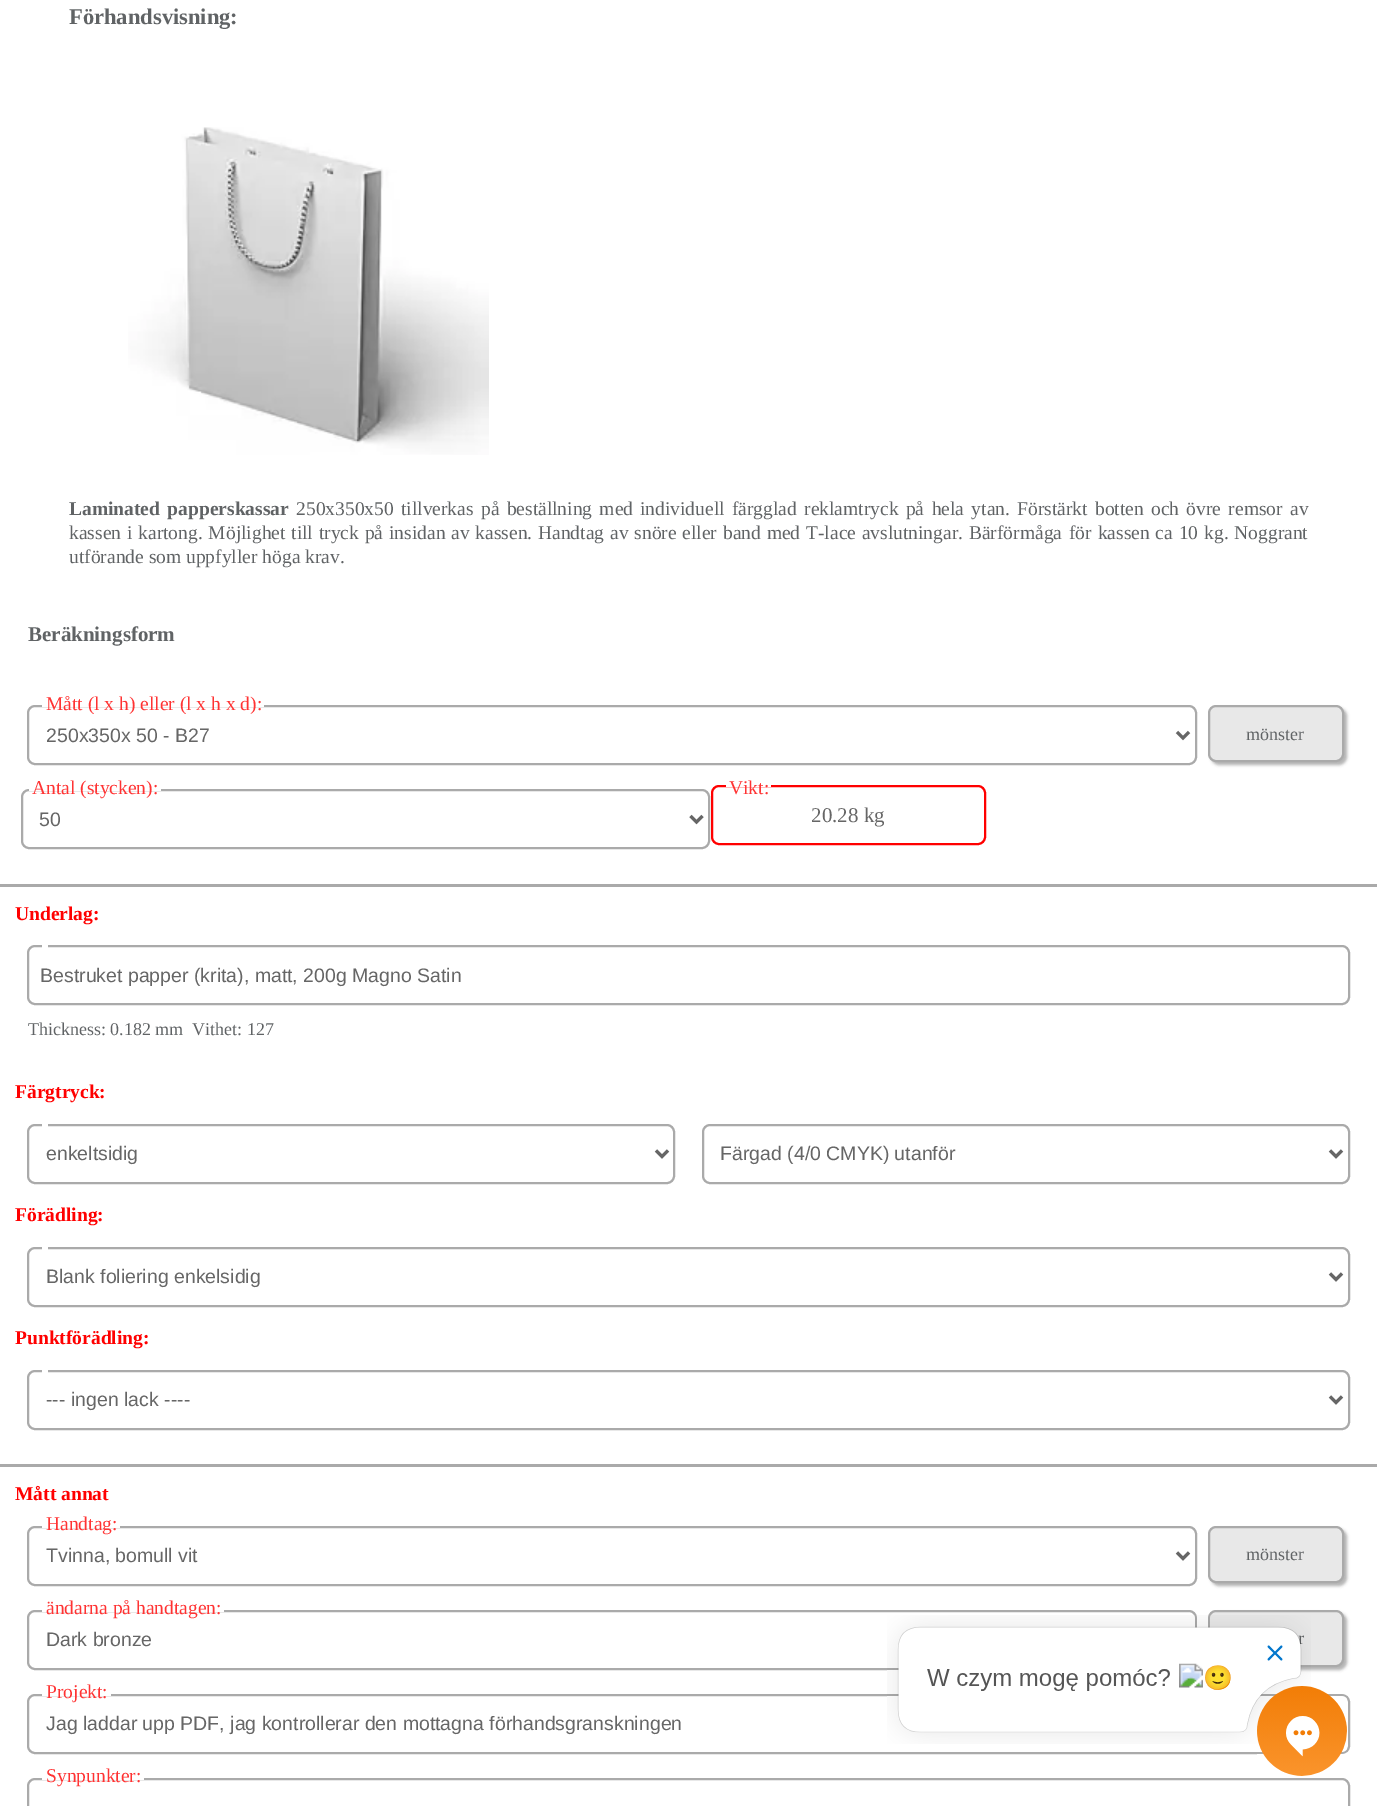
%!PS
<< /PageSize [1377 1806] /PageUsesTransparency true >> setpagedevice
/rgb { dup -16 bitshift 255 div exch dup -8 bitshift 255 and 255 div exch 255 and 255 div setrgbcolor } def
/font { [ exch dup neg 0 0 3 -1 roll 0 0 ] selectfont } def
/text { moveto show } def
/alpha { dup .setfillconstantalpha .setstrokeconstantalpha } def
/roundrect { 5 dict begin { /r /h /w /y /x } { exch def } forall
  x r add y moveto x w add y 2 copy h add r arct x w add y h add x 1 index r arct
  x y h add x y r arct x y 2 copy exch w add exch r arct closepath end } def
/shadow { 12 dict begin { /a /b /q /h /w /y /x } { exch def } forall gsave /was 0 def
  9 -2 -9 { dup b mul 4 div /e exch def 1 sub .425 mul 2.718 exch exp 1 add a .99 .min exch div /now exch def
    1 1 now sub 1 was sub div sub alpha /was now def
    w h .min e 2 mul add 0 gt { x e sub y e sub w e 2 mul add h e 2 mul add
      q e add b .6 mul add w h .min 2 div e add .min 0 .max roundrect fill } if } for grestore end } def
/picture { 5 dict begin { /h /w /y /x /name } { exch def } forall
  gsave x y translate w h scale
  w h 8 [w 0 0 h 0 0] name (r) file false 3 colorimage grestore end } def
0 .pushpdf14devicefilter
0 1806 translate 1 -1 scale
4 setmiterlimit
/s1 { /LiberationSerif-Bold 22.5 font 16#606365 rgb } def
/s2 { /LiberationSerif-Regular 19.5 font 16#606365 rgb } def
/s3 { /LiberationSerif-Bold 21 font 16#606365 rgb } def
/s4 { /LiberationSerif-Regular 19.5 font 16#FF3333 rgb } def
/s5 { /LiberationSans-Regular 19.5 font 16#666666 rgb } def
/s6 { /LiberationSerif-Regular 18 font 16#606365 rgb } def
/s7 { /LiberationSerif-Regular 21 font 16#666666 rgb } def
/s8 { /LiberationSerif-Bold 19.5 font 16#FF0000 rgb } def
16#FFFFFF rgb
0 0 1377 1806 rectfill
s1
(Förhandsvisning:) 69 24 text
(pic1.raw) 128 127 361 328 picture
/LiberationSerif-Bold 19.5 font
69 515 moveto 2.5 0 32 (Laminated papperskassar) widthshow
/LiberationSerif-Regular 19.5 font
296 515 moveto 2.5 0 32 (250x350x50 tillverkas på beställning med) widthshow
640 515 moveto 2.5 0 32 (individuell färgglad reklamtryck på hela ytan.) widthshow
1017 515 moveto 2.5 0 32 (Förstärkt botten och övre remsor av) widthshow
69 539 moveto 1 0 32 (kassen i kartong. Möjlighet till tryck på insidan) widthshow
451 539 moveto 1 0 32 (av kassen. Handtag av snöre eller band med T-lace avslutningar. Bärförmåga) widthshow
1069 539 moveto 1 0 32 (för kassen ca 10 kg. Noggrant) widthshow
(utförande som uppfyller höga krav.) 69 563 text
s3
(Beräkningsform) 28 641 text
16#AAAAAA rgb
2 setlinewidth
28 706 1168 58 7 roundrect stroke
16#FFFFFF rgb
42 705 222 2 rectfill
s4
(Mått \(l x h\) eller \(l x h x d\):) 46 710 text
16#666666 rgb
3 setlinewidth
1177 732 moveto 1183 738 lineto 1189 732 lineto stroke
s5
(250x350x 50 - B27) 46 742 text
16#000000 rgb
1211 708 136 57 8 1.5 0.3 shadow
16#E8E8E8 rgb
1209 706 134 55 7 roundrect gsave fill grestore
16#AAAAAA rgb
2 setlinewidth
stroke
s6
(mönster) 1246 740 text
16#AAAAAA rgb
22 790 687 58 7 roundrect stroke
16#FFFFFF rgb
29 789 132 2 rectfill
s4
(Antal \(stycken\):) 32 794 text
16#666666 rgb
3 setlinewidth
690.5 816 moveto 696.5 822 lineto 702.5 816 lineto stroke
s5
(50) 39 826 text
16#FF0000 rgb
2 setlinewidth
712 786 273 58 7 roundrect stroke
16#FFFFFF rgb
726 785 45 2 rectfill
s4
(Vikt:) 729 794 text
s7
(20.28 kg) 811 822 text
16#AAAAAA rgb
0 884 1377 3 rectfill
s8
(Underlag:) 15 920 text
16#AAAAAA rgb
28 946 1321 58 7 roundrect stroke
16#FFFFFF rgb
42 945 6 9 rectfill
s5
(Bestruket papper \(krita\), matt, 200g Magno Satin) 40 982 text
s6
(Thickness: 0.182 mm  Vithet: 127) 28 1035 text
s8
(Färgtryck:) 15 1098 text
16#AAAAAA rgb
28 1125 646 58 7 roundrect stroke
16#FFFFFF rgb
42 1124 6 9 rectfill
16#666666 rgb
3 setlinewidth
656 1150.5 moveto 662 1156.5 lineto 668 1150.5 lineto stroke
s5
(enkeltsidig) 46 1160 text
16#AAAAAA rgb
2 setlinewidth
703 1125 646 58 7 roundrect stroke
16#666666 rgb
3 setlinewidth
1330 1150.5 moveto 1336 1156.5 lineto 1342 1150.5 lineto stroke
(Färgad \(4/0 CMYK\) utanför) 720 1160 text
s8
(Förädling:) 15 1221 text
16#AAAAAA rgb
2 setlinewidth
28 1248 1321 58 7 roundrect stroke
16#FFFFFF rgb
42 1247 6 9 rectfill
16#666666 rgb
3 setlinewidth
1330 1273.5 moveto 1336 1279.5 lineto 1342 1273.5 lineto stroke
s5
(Blank foliering enkelsidig) 46 1283 text
s8
(Punktförädling:) 15 1344 text
16#AAAAAA rgb
2 setlinewidth
28 1371 1321 58 7 roundrect stroke
16#FFFFFF rgb
42 1370 6 9 rectfill
16#666666 rgb
3 setlinewidth
1330 1396.5 moveto 1336 1402.5 lineto 1342 1396.5 lineto stroke
s5
(--- ingen lack ----) 46 1406 text
16#AAAAAA rgb
0 1464 1377 3 rectfill
s8
(Mått annat) 15 1500 text
16#AAAAAA rgb
2 setlinewidth
28 1527 1168 58 7 roundrect stroke
16#FFFFFF rgb
42 1526 78 2 rectfill
s4
(Handtag:) 46 1530 text
16#666666 rgb
3 setlinewidth
1177 1552.5 moveto 1183 1558.5 lineto 1189 1552.5 lineto stroke
s5
(Tvinna, bomull vit) 46 1562 text
16#000000 rgb
1211 1529 136 57 8 1.5 0.3 shadow
16#E8E8E8 rgb
1209 1527 134 55 7 roundrect gsave fill grestore
16#AAAAAA rgb
2 setlinewidth
stroke
s6
(mönster) 1246 1560 text
16#AAAAAA rgb
28 1611 1168 58 7 roundrect stroke
16#FFFFFF rgb
42 1610 182 2 rectfill
s4
(ändarna på handtagen:) 46 1614 text
s5
(Dark bronze) 46 1646 text
16#000000 rgb
1211 1613 136 57 8 1.5 0.3 shadow
16#E8E8E8 rgb
1209 1611 134 55 7 roundrect gsave fill grestore
16#AAAAAA rgb
stroke
s6
(r) 1298 1644 text
16#AAAAAA rgb
28 1695 1321 58 7 roundrect stroke
16#FFFFFF rgb
42 1694 69 2 rectfill
s4
(Projekt:) 46 1698 text
s5
(Jag laddar upp PDF, jag kontrollerar den mottagna förhandsgranskningen) 46 1730 text
16#AAAAAA rgb
28 1779 1321 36 7 roundrect stroke
16#FFFFFF rgb
42 1778 102 2 rectfill
s4
(Synpunkter:) 46 1782 text
(pic2.raw) 887 1615 424 129 picture
(pic3.raw) 1257 1686 90 90 picture
.poppdf14devicefilter showpage
